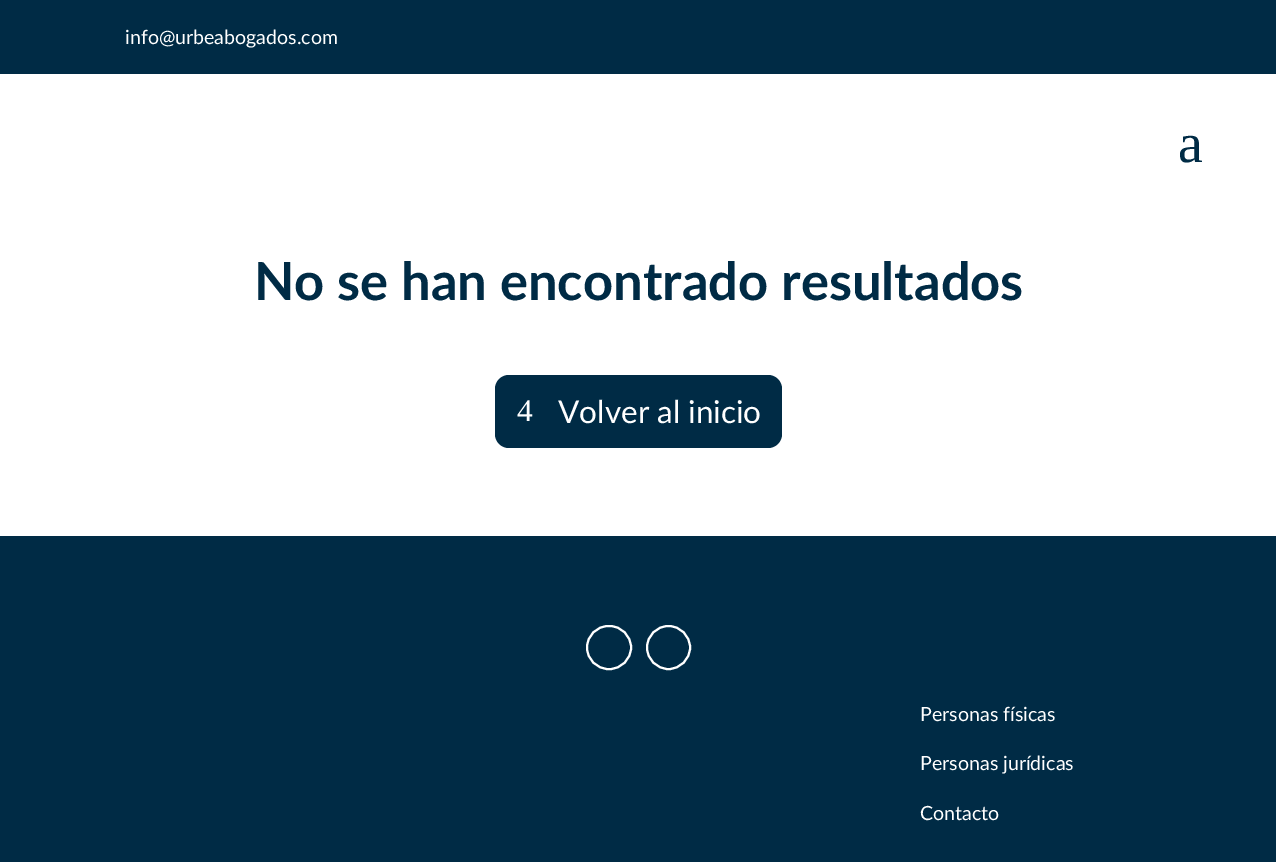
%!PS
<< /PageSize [1276 862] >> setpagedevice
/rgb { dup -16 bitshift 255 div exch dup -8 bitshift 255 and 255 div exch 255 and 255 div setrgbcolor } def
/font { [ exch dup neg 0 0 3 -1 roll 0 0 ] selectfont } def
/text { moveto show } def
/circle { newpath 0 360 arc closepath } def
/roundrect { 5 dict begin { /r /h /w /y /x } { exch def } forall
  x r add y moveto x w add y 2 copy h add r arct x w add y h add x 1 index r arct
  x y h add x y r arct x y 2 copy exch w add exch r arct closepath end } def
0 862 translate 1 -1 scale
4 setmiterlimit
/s1 { /Lato-Regular 19.6 font 16#FFFFFF rgb } def
/s2 { /LiberationSerif-Regular 56 font 16#002B45 rgb } def
/s3 { /Lato-Bold 52.5 font 16#002B45 rgb } def
/s4 { /LiberationSerif-Regular 31.5 font 16#FFFFFF rgb } def
/s5 { /Lato-Regular 31.5 font 16#FFFFFF rgb } def
16#FFFFFF rgb
0 0 1276 862 rectfill
16#002B45 rgb
0 0 1276 74 rectfill
s1
(info@urbeabogados.com) 125 44 text
s2
(a) 1178 162 text
s3
(No se han encontrado resultados) 254 300 text
495 375 287 73 14 roundrect fill
s4
(4) 517 421 text
s5
(Volver al inicio) 558 423 text
16#002B45 rgb
0 536 1276 326 rectfill
16#FFFFFF rgb
2 setlinewidth
587 626 44 43 21.5 roundrect stroke
668.5 647.5 21.5 circle stroke
s1
(Personas físicas) 920 721 text
(Personas jurídicas) 920 770 text
(Contacto) 920 820 text
showpage
